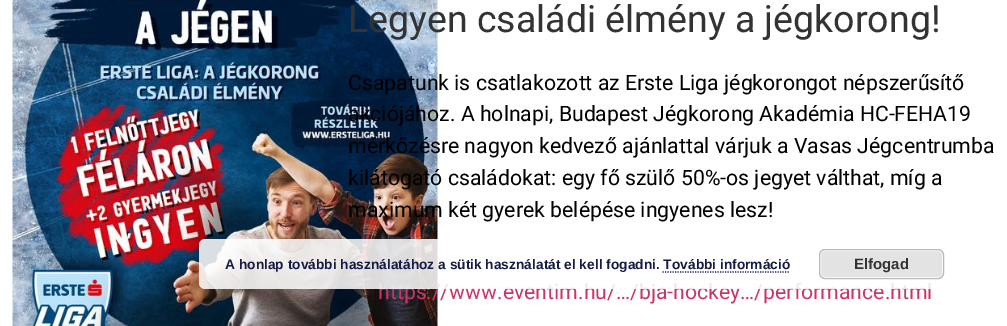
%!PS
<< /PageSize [1007 326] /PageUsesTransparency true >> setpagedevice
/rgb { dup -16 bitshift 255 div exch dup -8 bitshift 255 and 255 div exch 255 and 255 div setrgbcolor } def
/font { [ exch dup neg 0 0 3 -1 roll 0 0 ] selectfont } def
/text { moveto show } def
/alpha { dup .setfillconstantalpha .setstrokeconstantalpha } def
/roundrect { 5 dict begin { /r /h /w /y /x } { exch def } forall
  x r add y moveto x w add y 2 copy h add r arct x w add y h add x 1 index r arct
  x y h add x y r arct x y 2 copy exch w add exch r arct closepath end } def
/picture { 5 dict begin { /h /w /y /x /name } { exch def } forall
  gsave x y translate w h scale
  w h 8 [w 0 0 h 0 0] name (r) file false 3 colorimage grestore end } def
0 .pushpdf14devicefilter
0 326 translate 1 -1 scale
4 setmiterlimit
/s1 { /Roboto-Regular 37.5 font 16#333333 rgb } def
/s2 { /Roboto-Regular 21.25 font 16#000000 rgb } def
/s3 { /Roboto-Regular 21.25 font 16#CC3366 rgb } def
/s4 { /LiberationSans-Bold 13.75 font 16#151B44 rgb } def
/s5 { /LiberationSans-Bold 15 font 16#333333 rgb } def
16#FFFFFF rgb
0 0 1007 326 rectfill
(pic1.raw) 12 0 426 326 picture
s1
(Legyen családi élmény a jégkorong!) 348 32 text
s2
(Csapatunk is csatlakozott az Erste Liga jégkorongot népszerűsítő) 348 90 text
(akciójához. A holnapi, Budapest Jégkorong Akadémia HC-FEHA19) 348 121 text
(mérkőzésre nagyon kedvező ajánlattal várjuk a Vasas Jégcentrumba) 348 153 text
(kilátogató családokat: egy fő szülő 50%-os jegyet válthat, míg a) 348 185 text
(maximum két gyerek belépése ingyenes lesz!) 348 217 text
s3
(https://www.eventim.hu/…/bja-hockey…/performance.html) 378 299 text
0.85 alpha
16#FFFFFF rgb
199 239 771 50 6 roundrect fill
1 alpha
s4
(A honlap további használatához a sütik használatát el kell fogadni. További információ) 225 269 text
16#E3E3E3 rgb
819 249 125 30 6 roundrect fill
16#F6F6F6 rgb
820.5 250.5 122 27 4.5 roundrect stroke
16#BBBBBB rgb
819.5 249.5 124 29 5.5 roundrect stroke
s5
(Elfogad) 854 269 text
16#151B44 rgb
1.2 setlinewidth
[1.25 1.25] 0 setdash
662.5 272 moveto 790 272 lineto stroke
.poppdf14devicefilter showpage
